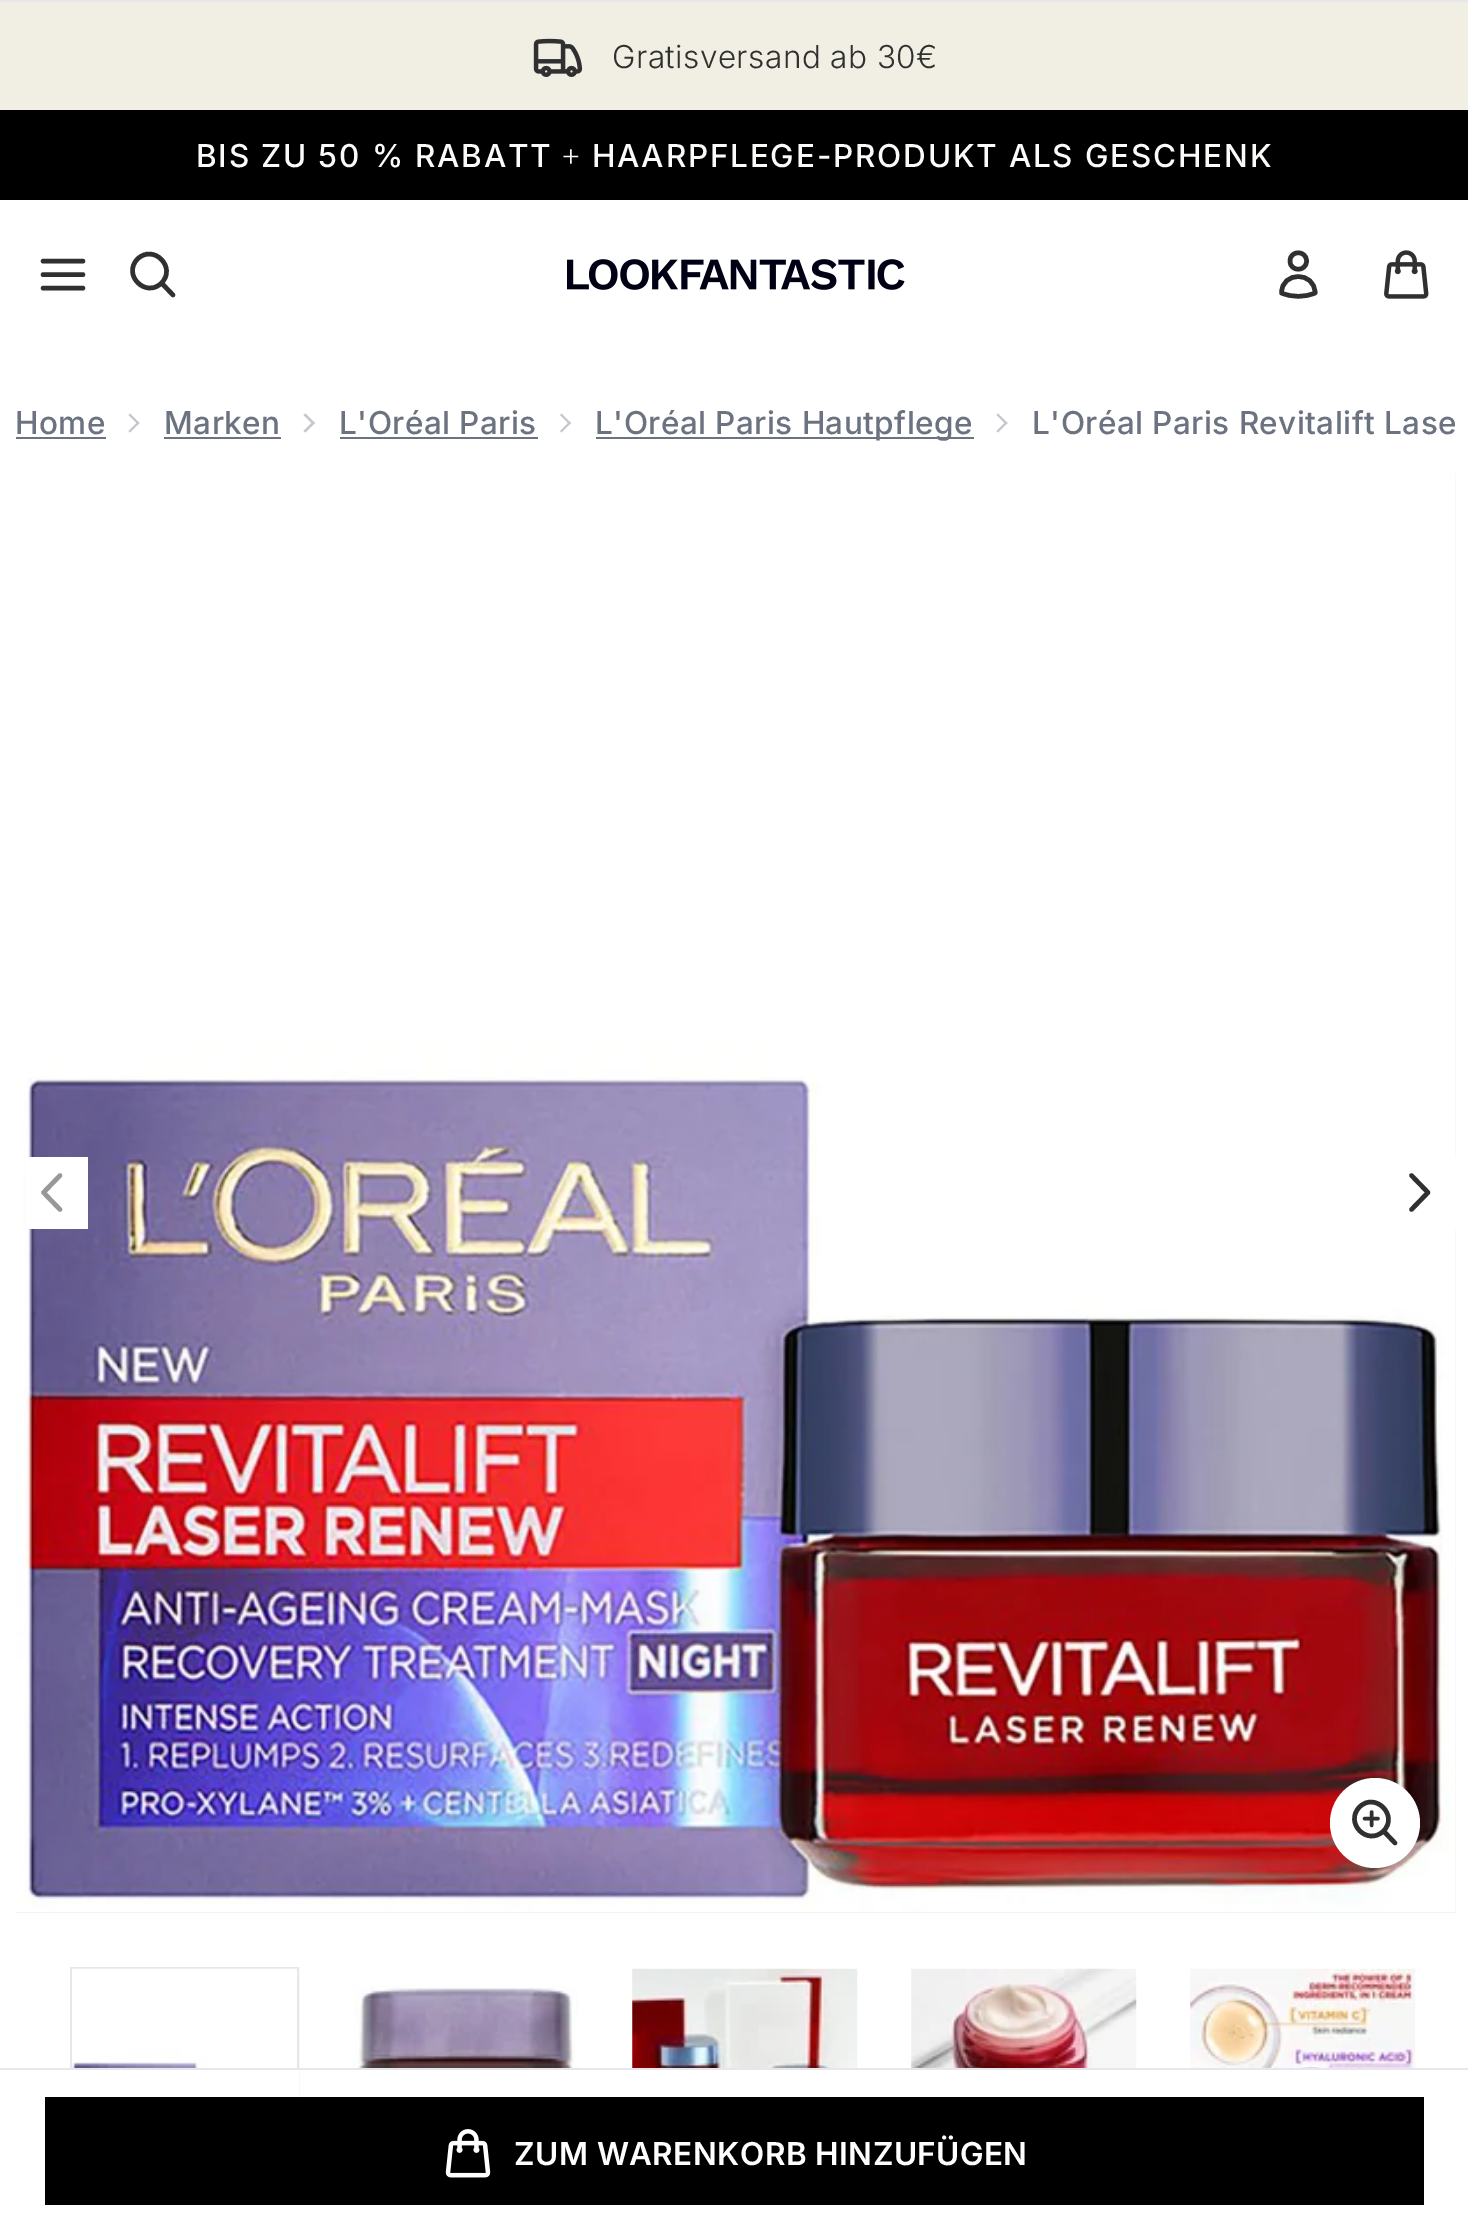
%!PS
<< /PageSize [1468 2232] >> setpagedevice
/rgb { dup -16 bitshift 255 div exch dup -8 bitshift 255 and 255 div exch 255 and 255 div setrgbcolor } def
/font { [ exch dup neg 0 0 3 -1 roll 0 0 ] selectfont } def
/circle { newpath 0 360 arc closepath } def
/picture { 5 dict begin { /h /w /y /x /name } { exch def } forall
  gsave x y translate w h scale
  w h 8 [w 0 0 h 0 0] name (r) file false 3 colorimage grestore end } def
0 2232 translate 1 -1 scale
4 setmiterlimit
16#FFFFFF rgb
0 0 1468 2232 rectfill
16#F1EEE4 rgb
0 2 1468 108 rectfill
16#E5E7EB rgb
0 0 1468 2 rectfill
(pic1.raw) 533 38 50 39 picture
/Inter-Light 31.5 font
16#303030 rgb
612 68 moveto 0.45 0 (Gratisversand ab 30€) ashow
16#000000 rgb
0 110 1468 90 rectfill
/Inter-Medium 31.5 font
16#FBFBF9 rgb
196 167 moveto 1.8 0 (BIS ZU 50 % RABATT) ashow
/LiberationSerif-Regular 31.5 font
562 167 moveto 1.8 0 (+) ashow
/Inter-Medium 31.5 font
592 167 moveto 1.8 0 (HAARPFLEGE-PRODUKT ALS GESCHENK) ashow
16#303030 rgb
4.5 setlinewidth
1 setlinecap
1 setlinejoin
43 274.5 moveto 83 274.5 lineto 43 261 moveto 83 261 lineto 43 288 moveto 83 288 lineto stroke
173 295 moveto 161.5 283 lineto 161.5 283 moveto 177 267.5 153.5 243.5 137.5 259 curveto 122 275 146 298.5 161.5 283 curveto closepath stroke
(pic2.raw) 567 259 338 31 picture
1306.5 261 moveto 1306.5 272 1290 272 1290 261 curveto 1290 250 1306.5 250 1306.5 261 curveto closepath 1281.5 293 moveto 1281.5 271 1315 271 1315 293 curveto 1304.5 297.5 1292 297.5 1281.5 293 curveto closepath stroke
(pic3.raw) 1384 250 45 49 picture
16#6B7280 rgb
15 434 moveto 0.45 0 (Home) ashow
16 437 90 2 rectfill
16#C4C7CC rgb
130 413.5 moveto 139.5 423 lineto 138 424.5 lineto 128.5 415 lineto closepath fill
138 421.5 moveto 139.5 423 lineto 130 432.5 lineto 128.5 431 lineto closepath fill
16#6B7280 rgb
164 434 moveto 0.45 0 (Marken) ashow
164 437 117 2 rectfill
16#C4C7CC rgb
305.5 413.5 moveto 315 423 lineto 313 424.5 lineto 303.5 415 lineto closepath fill
313 421.5 moveto 315 423 lineto 305.5 432.5 lineto 303.5 431 lineto closepath fill
16#6B7280 rgb
339 434 moveto 0.45 0 (L'Oréal Paris) ashow
340 437 198 2 rectfill
16#C4C7CC rgb
561.5 413.5 moveto 571 423 lineto 569.5 424.5 lineto 560 415 lineto closepath fill
569.5 421.5 moveto 571 423 lineto 561.5 432.5 lineto 560 431 lineto closepath fill
16#6B7280 rgb
596 437 378 2 rectfill
595 434 moveto 0.45 0 (L'Oréal Paris Hautpflege) ashow
16#C4C7CC rgb
998 413.5 moveto 1007.5 423 lineto 1006 424.5 lineto 996.5 415 lineto closepath fill
1006 421.5 moveto 1007.5 423 lineto 998 432.5 lineto 996.5 431 lineto closepath fill
16#6B7280 rgb
1032 434 moveto 0.45 0 (L'Oréal Paris Revitalift Lase) ashow
16#F1F2F3 rgb
16 473 1440 1440 rectfill
(pic4.raw) 16 473 1440 1439 picture
16#FFFFFF rgb
27 1157 61 72 rectfill
16#989898 rgb
60 1209.5 moveto 43.5 1192.5 lineto 60 1175.5 lineto stroke
16#FFFFFF rgb
1455 1157 1 72 rectfill
16#303030 rgb
1411.5 1175.5 moveto 1428 1192.5 lineto 1411.5 1209.5 lineto stroke
16#FFFFFF rgb
1375 1823 45 circle fill
16#303030 rgb
1395 1843 moveto 1383.5 1831 lineto 1383.5 1831 moveto 1399 1815.5 1375 1791.5 1359.5 1807 curveto 1344 1823 1367.5 1846.5 1383.5 1831 curveto closepath stroke
3.4 setlinewidth
1364.5 1818.5 moveto 1378 1818.5 lineto 1371.5 1812 moveto 1371.5 1825.5 lineto stroke
16#E5E7EB rgb
2 setlinewidth
0 setlinecap
0 setlinejoin
71 1968 227 227 rectstroke
(pic5.raw) 72 1968 225 100 picture
(pic6.raw) 353 1986 225 82 picture
(pic7.raw) 632 1968 226 100 picture
(pic8.raw) 911 1968 226 100 picture
(pic9.raw) 1190 1968 226 100 picture
16#FFFFFF rgb
70 2070 229 126 rectfill
16#E5E7EB rgb
0 2068 1468 2 rectfill
16#000000 rgb
45 2097 1379 108 rectfill
(pic10.raw) 445 2129 46 49 picture
/Inter-SemiBold 31.5 font
16#FFFFFF rgb
514 2165 moveto 0.45 0 (ZUM WARENKORB HINZUFÜGEN) ashow
showpage
